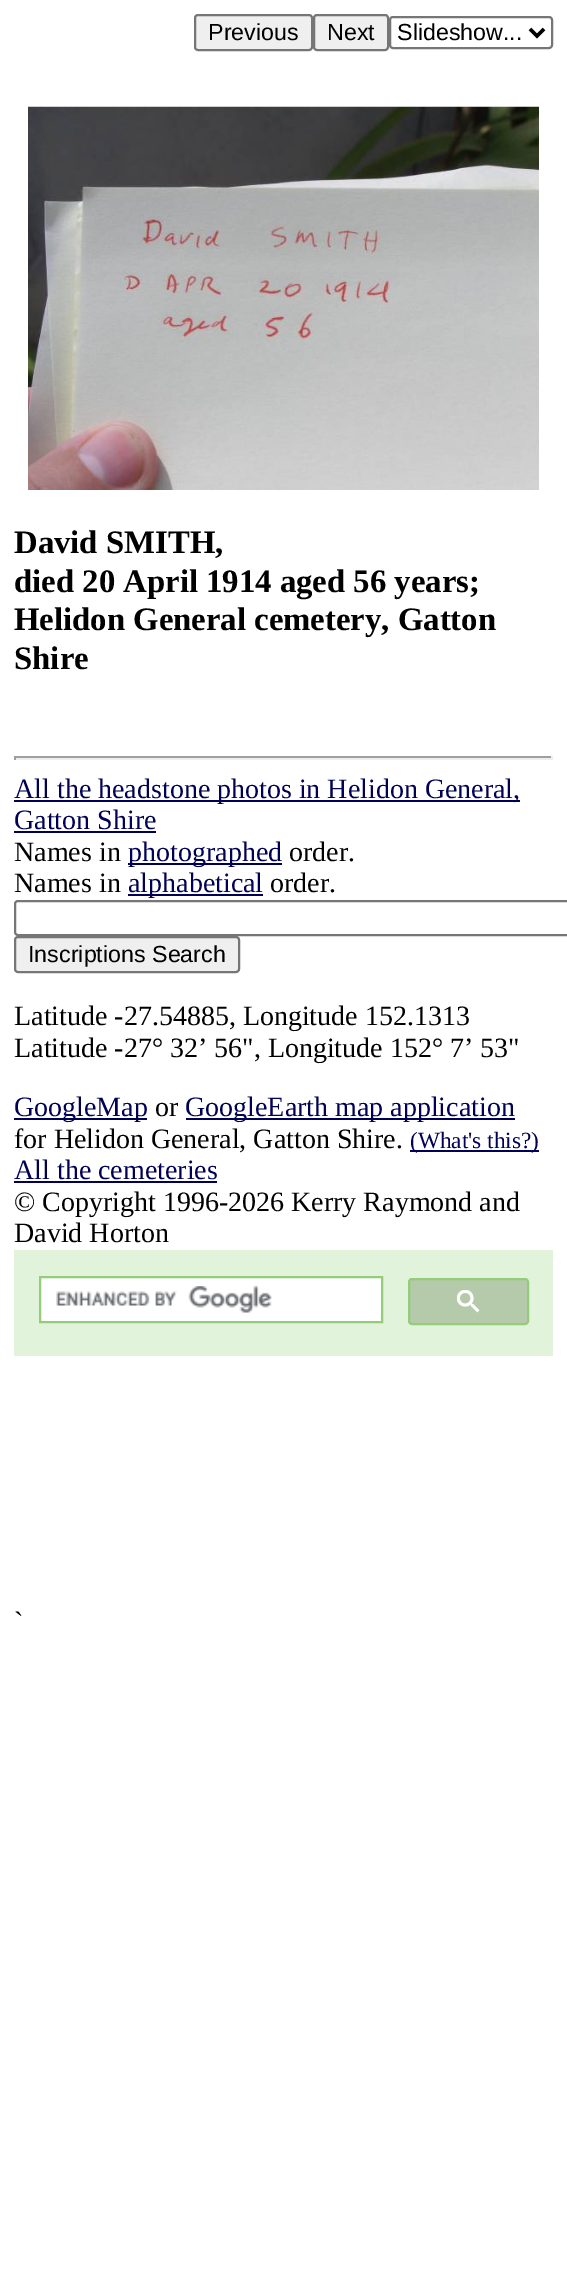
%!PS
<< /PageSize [567 2280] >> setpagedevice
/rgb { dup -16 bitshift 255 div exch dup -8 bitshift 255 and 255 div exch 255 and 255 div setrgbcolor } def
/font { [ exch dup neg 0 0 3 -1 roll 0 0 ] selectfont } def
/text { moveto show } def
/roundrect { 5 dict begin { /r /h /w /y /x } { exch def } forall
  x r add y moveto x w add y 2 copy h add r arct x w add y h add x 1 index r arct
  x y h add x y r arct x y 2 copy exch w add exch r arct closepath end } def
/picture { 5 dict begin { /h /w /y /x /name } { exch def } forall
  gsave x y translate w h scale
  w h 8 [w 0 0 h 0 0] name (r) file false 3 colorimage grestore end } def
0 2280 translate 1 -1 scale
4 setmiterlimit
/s1 { /LiberationSans-Regular 23.25 font 16#000000 rgb } def
/s2 { /LiberationSerif-Bold 32.75 font 16#000000 rgb } def
/s3 { /LiberationSerif-Regular 28 font 16#000055 rgb } def
/s4 { /LiberationSerif-Regular 28 font 16#000000 rgb } def
/s5 { /LiberationSerif-Regular 23.25 font 16#000055 rgb } def
16#FFFFFF rgb
0 0 567 2280 rectfill
16#EFEFEF rgb
195 15 117 35 3 roundrect gsave fill grestore
16#767676 rgb
2 setlinewidth
stroke
s1
(Previous) 208 40 text
16#EFEFEF rgb
314 15 74 35 3 roundrect gsave fill grestore
16#767676 rgb
stroke
s1
(Next) 327 40 text
16#767676 rgb
390 17 162 31 3 roundrect stroke
16#000000 rgb
3.5 setlinewidth
530 29 moveto 537 36 lineto 544 29 lineto stroke
(Slideshow...) 397 40 text
(pic1.raw) 28 106 511 384 picture
s2
(David SMITH,) 14 553 text
(died 20 April 1914 aged 56 years;) 14 592 text
(Helidon General cemetery, Gatton) 14 630 text
(Shire) 14 669 text
16#9F9F9F rgb
14 756 539 2 rectfill
16#EEEEEE rgb
551 756 2 4 rectfill
14 758 539 2 rectfill
16#9F9F9F rgb
14 756 2 4 rectfill
16#000055 rgb
14 800 506 2 rectfill
s3
(All the headstone photos in Helidon General,) 14 798 text
(Gatton Shire) 14 829 text
14 831 142 2 rectfill
s4
(Names in) 14 861 text
16#000055 rgb
128 863 154 2 rectfill
(photographed) 128 861 text
s4
(order.) 289 861 text
(Names in) 14 892 text
16#000055 rgb
128 894 135 2 rectfill
(alphabetical) 128 892 text
s4
(order.) 270 892 text
16#767676 rgb
2 setlinewidth
15 901 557 34 3 roundrect stroke
16#EFEFEF rgb
15 937 224 35 3 roundrect gsave fill grestore
16#767676 rgb
stroke
s1
(Inscriptions Search) 28 962 text
s4
(Latitude -27.54885, Longitude 152.1313) 14 1025 text
(Latitude -27° 32’ 56", Longitude 152° 7’ 53") 14 1057 text
16#000055 rgb
14 1118 133 2 rectfill
(GoogleMap) 14 1116 text
s4
(or) 155 1116 text
16#000055 rgb
186 1118 329 2 rectfill
(GoogleEarth map application) 185 1116 text
s4
(for Helidon General, Gatton Shire.) 14 1148 text
16#000055 rgb
410 1150 129 2 rectfill
s5
(\(What's this?\)) 410 1148 text
s3
(All the cemeteries) 14 1179 text
14 1181 203 2 rectfill
s4
(© Copyright 1996-2026 Kerry Raymond and) 14 1211 text
(David Horton) 14 1242 text
16#E1F3DA rgb
14 1250 539 106 rectfill
16#FFFFFF rgb
40 1277 moveto 382 1277 lineto 382 1322 lineto 40 1322 lineto closepath gsave fill grestore
16#94CC7A rgb
stroke
(pic2.raw) 56 1286 216 27 picture
16#B5C9AB rgb
409 1279 119 45 3 roundrect gsave fill grestore
16#94CC7A rgb
stroke
(pic3.raw) 457 1290 23 23 picture
s4
(`) 14 1631 text
showpage
